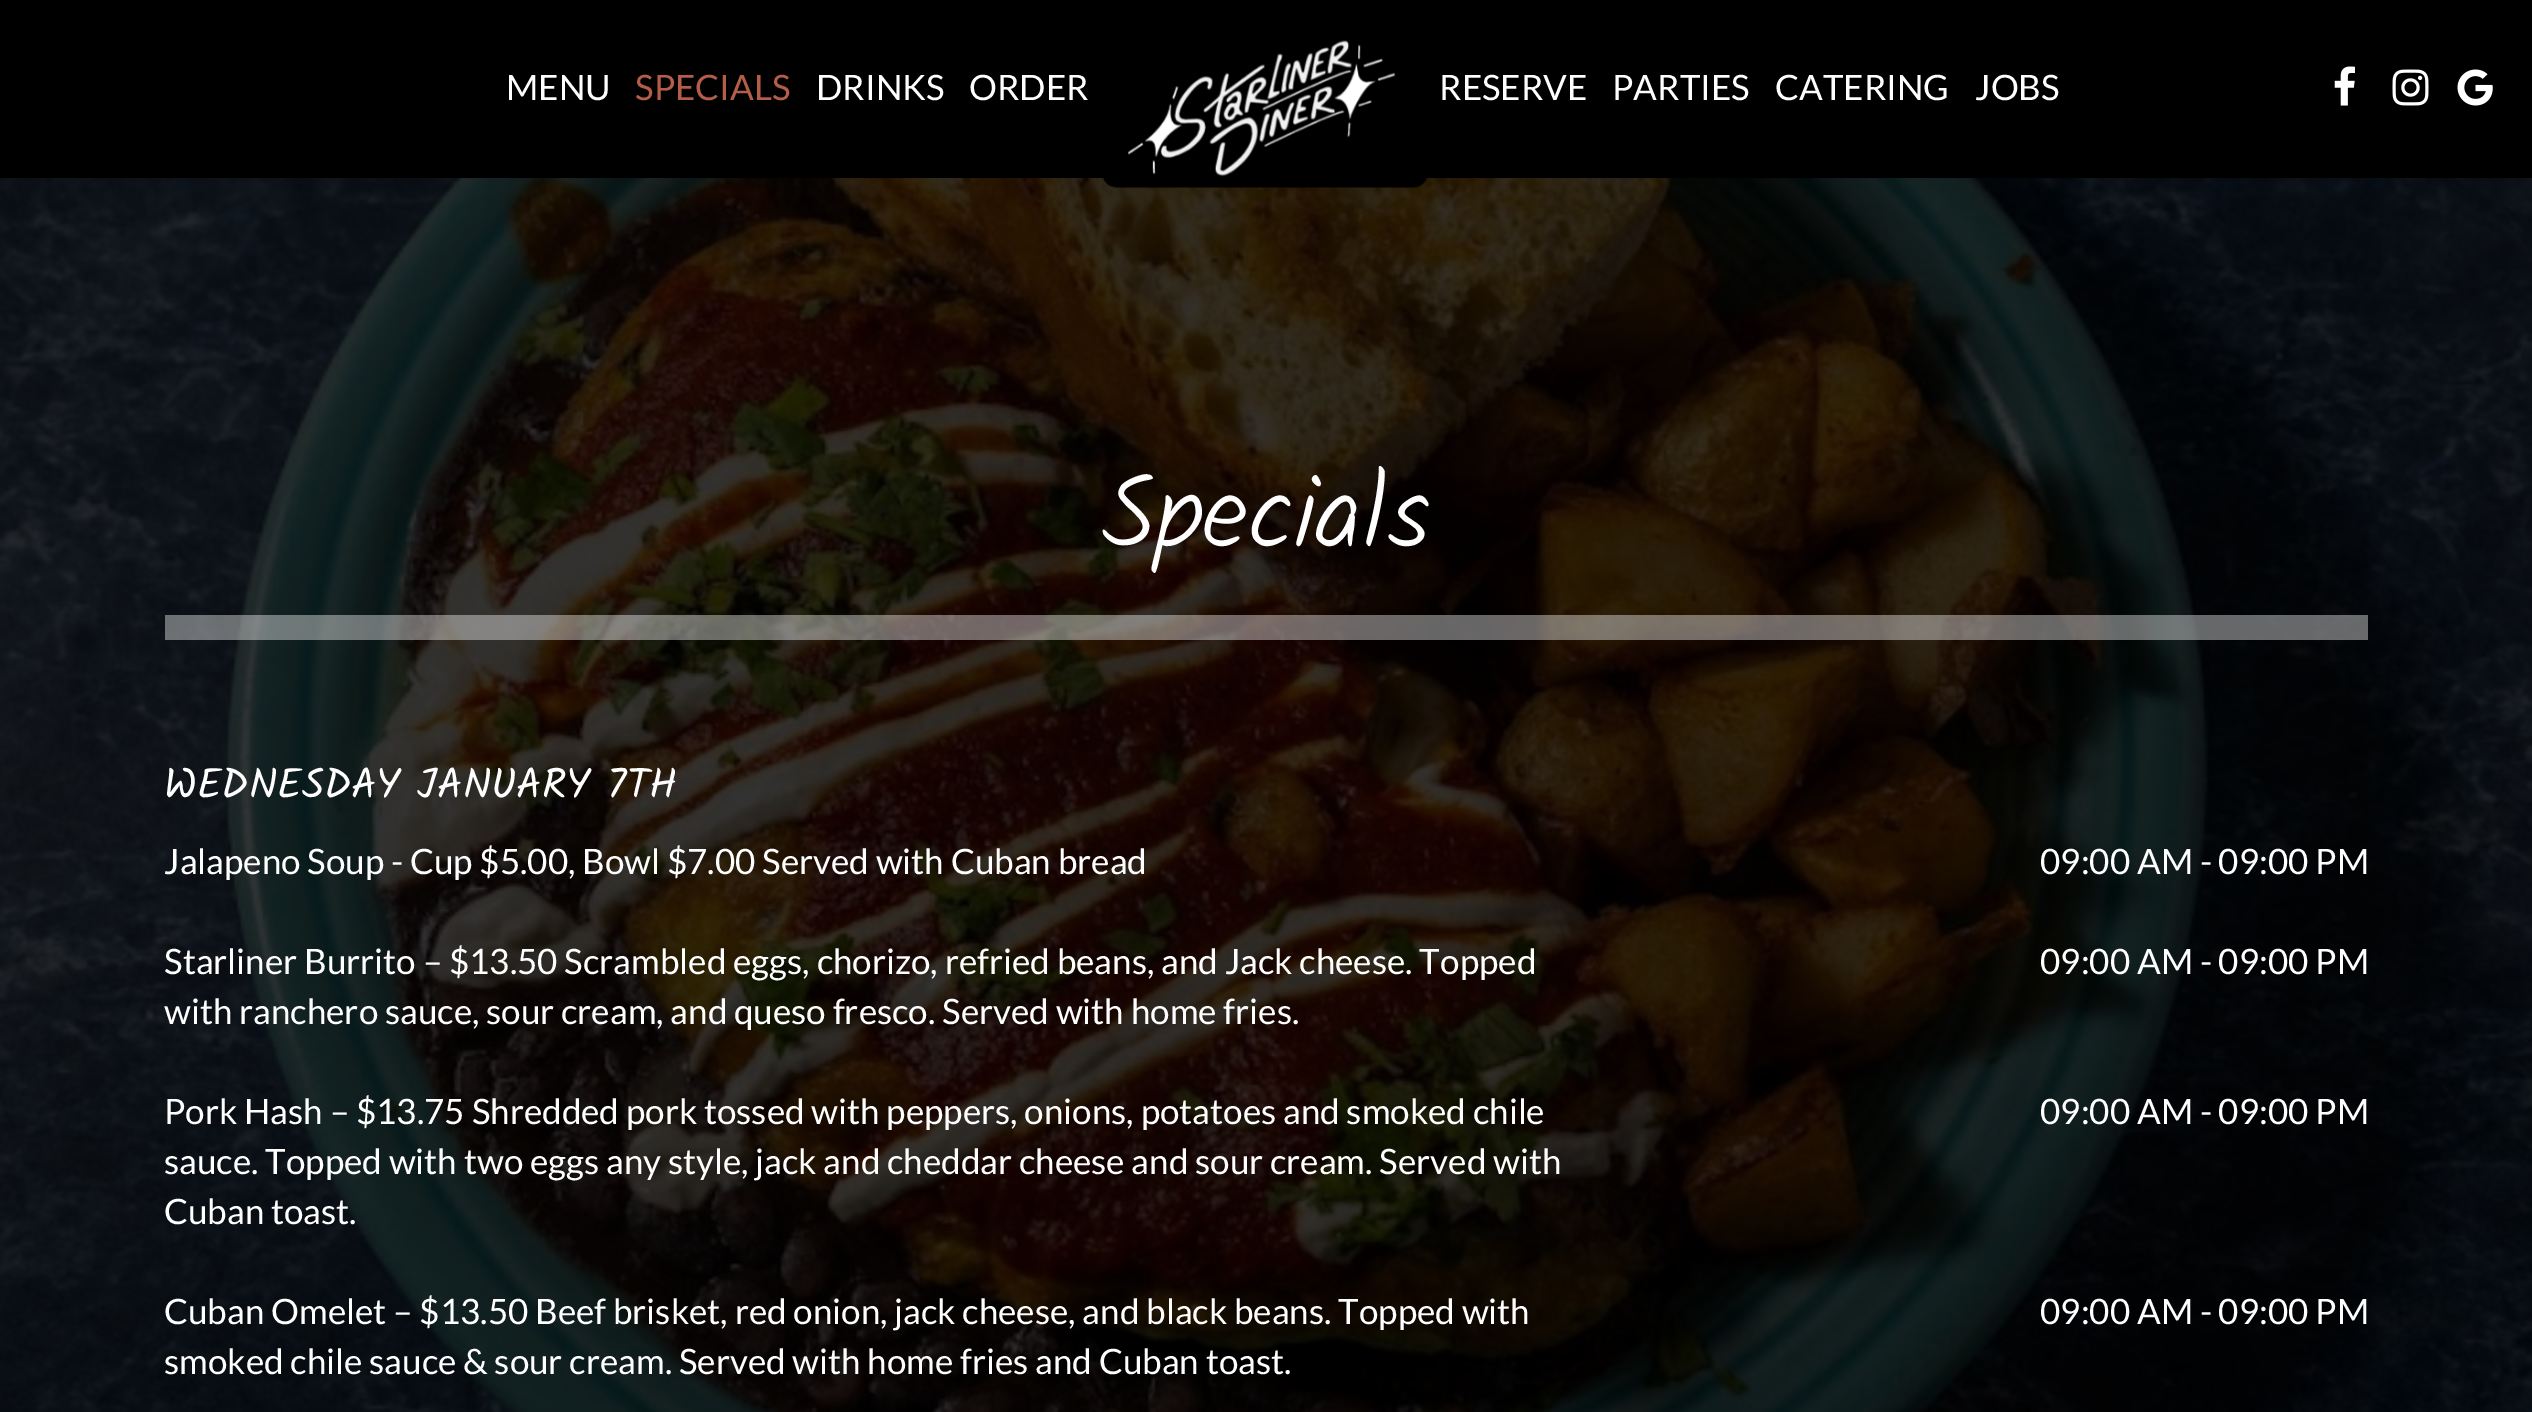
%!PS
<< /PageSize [2532 1412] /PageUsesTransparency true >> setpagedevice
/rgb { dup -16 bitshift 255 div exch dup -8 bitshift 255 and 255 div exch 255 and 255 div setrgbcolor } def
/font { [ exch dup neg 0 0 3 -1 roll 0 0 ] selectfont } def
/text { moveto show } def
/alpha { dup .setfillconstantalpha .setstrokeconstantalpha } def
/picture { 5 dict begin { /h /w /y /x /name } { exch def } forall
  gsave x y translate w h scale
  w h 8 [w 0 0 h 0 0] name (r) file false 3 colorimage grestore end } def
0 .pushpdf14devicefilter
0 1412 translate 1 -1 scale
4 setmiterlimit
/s1 { /Lato-Regular 35 font 16#FFFFFF rgb } def
/s2 { /Lato-Regular 35 font 16#B45D48 rgb } def
/s3 { /Kalam-Light 105 font 16#FFFFFF rgb } def
/s4 { /Kalam-Regular 42 font 16#FFFFFF rgb } def
16#FFFFFF rgb
0 0 2532 1412 rectfill
(pic1.raw) 0 178 2532 1234 picture
16#000000 rgb
0 0 2532 178 rectfill
s1
(MENU) 506 100 text
s2
(SPECIALS) 635 100 text
s1
(DRINKS) 816 100 text
(ORDER) 969 100 text
(pic2.raw) 1103 40 324 148 picture
(RESERVE) 1439 100 text
(PARTIES) 1612 100 text
(CATERING) 1775 100 text
(JOBS) 1975 100 text
(pic3.raw) 2334 66 21 40 picture
(pic4.raw) 2392 69 37 37 picture
(pic5.raw) 2457 69 36 37 picture
0.4 alpha
165 615 2203 25 rectfill
1 alpha
s3
(Specials) 1102 548 text
s4
(WEDNESDAY JANUARY 7TH) 164 798 text
s1
(Jalapeno Soup - Cup $5.00, Bowl $7.00 Served with Cuban bread) 164 874 text
(09:00 AM - 09:00 PM) 2040 874 text
(Starliner Burrito – $13.50 Scrambled eggs, chorizo, refried beans, and Jack cheese. Topped) 164 974 text
(with ranchero sauce, sour cream, and queso fresco. Served with home fries.) 164 1024 text
(09:00 AM - 09:00 PM) 2040 974 text
(Pork Hash – $13.75 Shredded pork tossed with peppers, onions, potatoes and smoked chile) 164 1124 text
(sauce. Topped with two eggs any style, jack and cheddar cheese and sour cream. Served with) 164 1174 text
(Cuban toast.) 164 1224 text
(09:00 AM - 09:00 PM) 2040 1124 text
(Cuban Omelet – $13.50 Beef brisket, red onion, jack cheese, and black beans. Topped with) 164 1324 text
(smoked chile sauce & sour cream. Served with home fries and Cuban toast.) 164 1374 text
(09:00 AM - 09:00 PM) 2040 1324 text
.poppdf14devicefilter showpage
